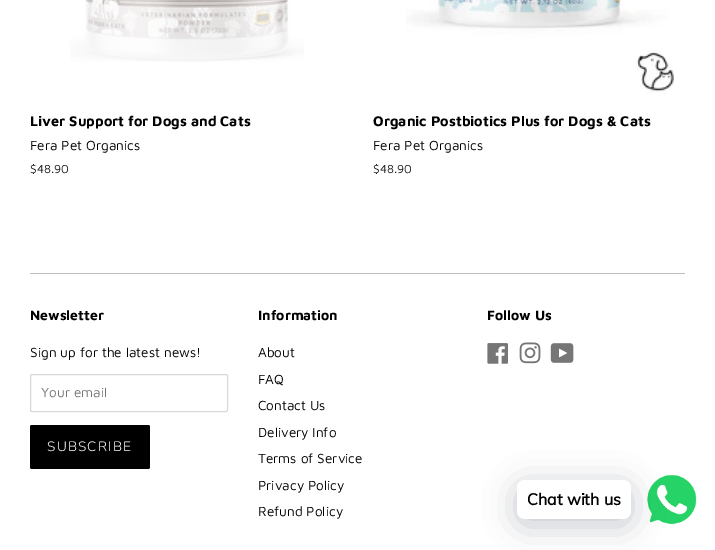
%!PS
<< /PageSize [715 550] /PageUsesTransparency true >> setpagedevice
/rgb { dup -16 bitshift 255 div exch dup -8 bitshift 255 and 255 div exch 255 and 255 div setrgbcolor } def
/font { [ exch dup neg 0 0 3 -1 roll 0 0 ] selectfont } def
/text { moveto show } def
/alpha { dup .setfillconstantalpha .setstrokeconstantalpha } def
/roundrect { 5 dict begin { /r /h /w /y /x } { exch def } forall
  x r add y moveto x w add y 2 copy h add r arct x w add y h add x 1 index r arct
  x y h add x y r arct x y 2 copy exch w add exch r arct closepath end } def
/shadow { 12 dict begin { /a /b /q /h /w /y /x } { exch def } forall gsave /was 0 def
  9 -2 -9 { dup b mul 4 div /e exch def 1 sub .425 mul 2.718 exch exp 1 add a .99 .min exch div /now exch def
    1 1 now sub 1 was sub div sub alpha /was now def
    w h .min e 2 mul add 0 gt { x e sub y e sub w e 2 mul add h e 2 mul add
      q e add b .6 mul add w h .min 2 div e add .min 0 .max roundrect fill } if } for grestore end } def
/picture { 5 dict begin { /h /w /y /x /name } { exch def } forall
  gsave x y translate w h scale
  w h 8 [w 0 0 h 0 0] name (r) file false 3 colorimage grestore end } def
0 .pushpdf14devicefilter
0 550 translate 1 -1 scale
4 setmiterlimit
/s1 { /MavenPro-Bold 14.4 font 16#000000 rgb } def
/s2 { /MavenPro-Regular 13.6 font 16#000000 rgb } def
/s3 { /MavenPro-Regular 12 font 16#1A1A1A rgb } def
/s4 { /MavenPro-Bold 14 font 16#000000 rgb } def
/s5 { /MavenPro-Regular 13.6 font 16#757575 rgb } def
/s6 { /Muli-Bold 16 font 16#000000 rgb } def
16#FFFFFF rgb
0 0 715 550 rectfill
(pic1.raw) 70 0 234 62 picture
s1
(Liver Support for Dogs and Cats) 30 126 text
s2
(Fera Pet Organics) 30 150 text
s3
($48.90) 30 173 text
(pic2.raw) 406 0 268 94 picture
s1
(Organic Postbiotics Plus for Dogs & Cats) 373 126 text
s2
(Fera Pet Organics) 373 150 text
s3
($48.90) 373 173 text
16#BDBDBD rgb
30 273 655 1 rectfill
s4
(Newsletter) 30 320 text
s2
(Sign up for the latest news!) 30 357 text
16#D9D9D9 rgb
30.5 374.5 197 37 1.5 roundrect stroke
s5
(Your email) 41 397 text
16#000000 rgb
30 425 120 44 2 roundrect fill
/Nunito-Light 13.6 font
16#FFFFFF rgb
47 451 moveto 1.25 0 (SUBSCRIBE) ashow
s4
(Information) 258 320 text
s2
(About) 258 357 text
(FAQ) 258 384 text
(Contact Us) 258 410 text
(Delivery Info) 258 437 text
(Terms of Service) 258 463 text
(Privacy Policy) 258 490 text
(Refund Policy) 258 516 text
s4
(Follow Us) 487 320 text
(pic3.raw) 487 343 21 21 picture
(pic4.raw) 519 342 22 22 picture
(pic5.raw) 550 343 24 20 picture
(pic6.raw) 647 474 50 50 picture
16#00122E rgb
517 486 114 39 8 16 0.24 shadow
16#FFFFFF rgb
517 480 114 39 8 roundrect fill
s6
(Chat with us) 527 505 text
.poppdf14devicefilter showpage
